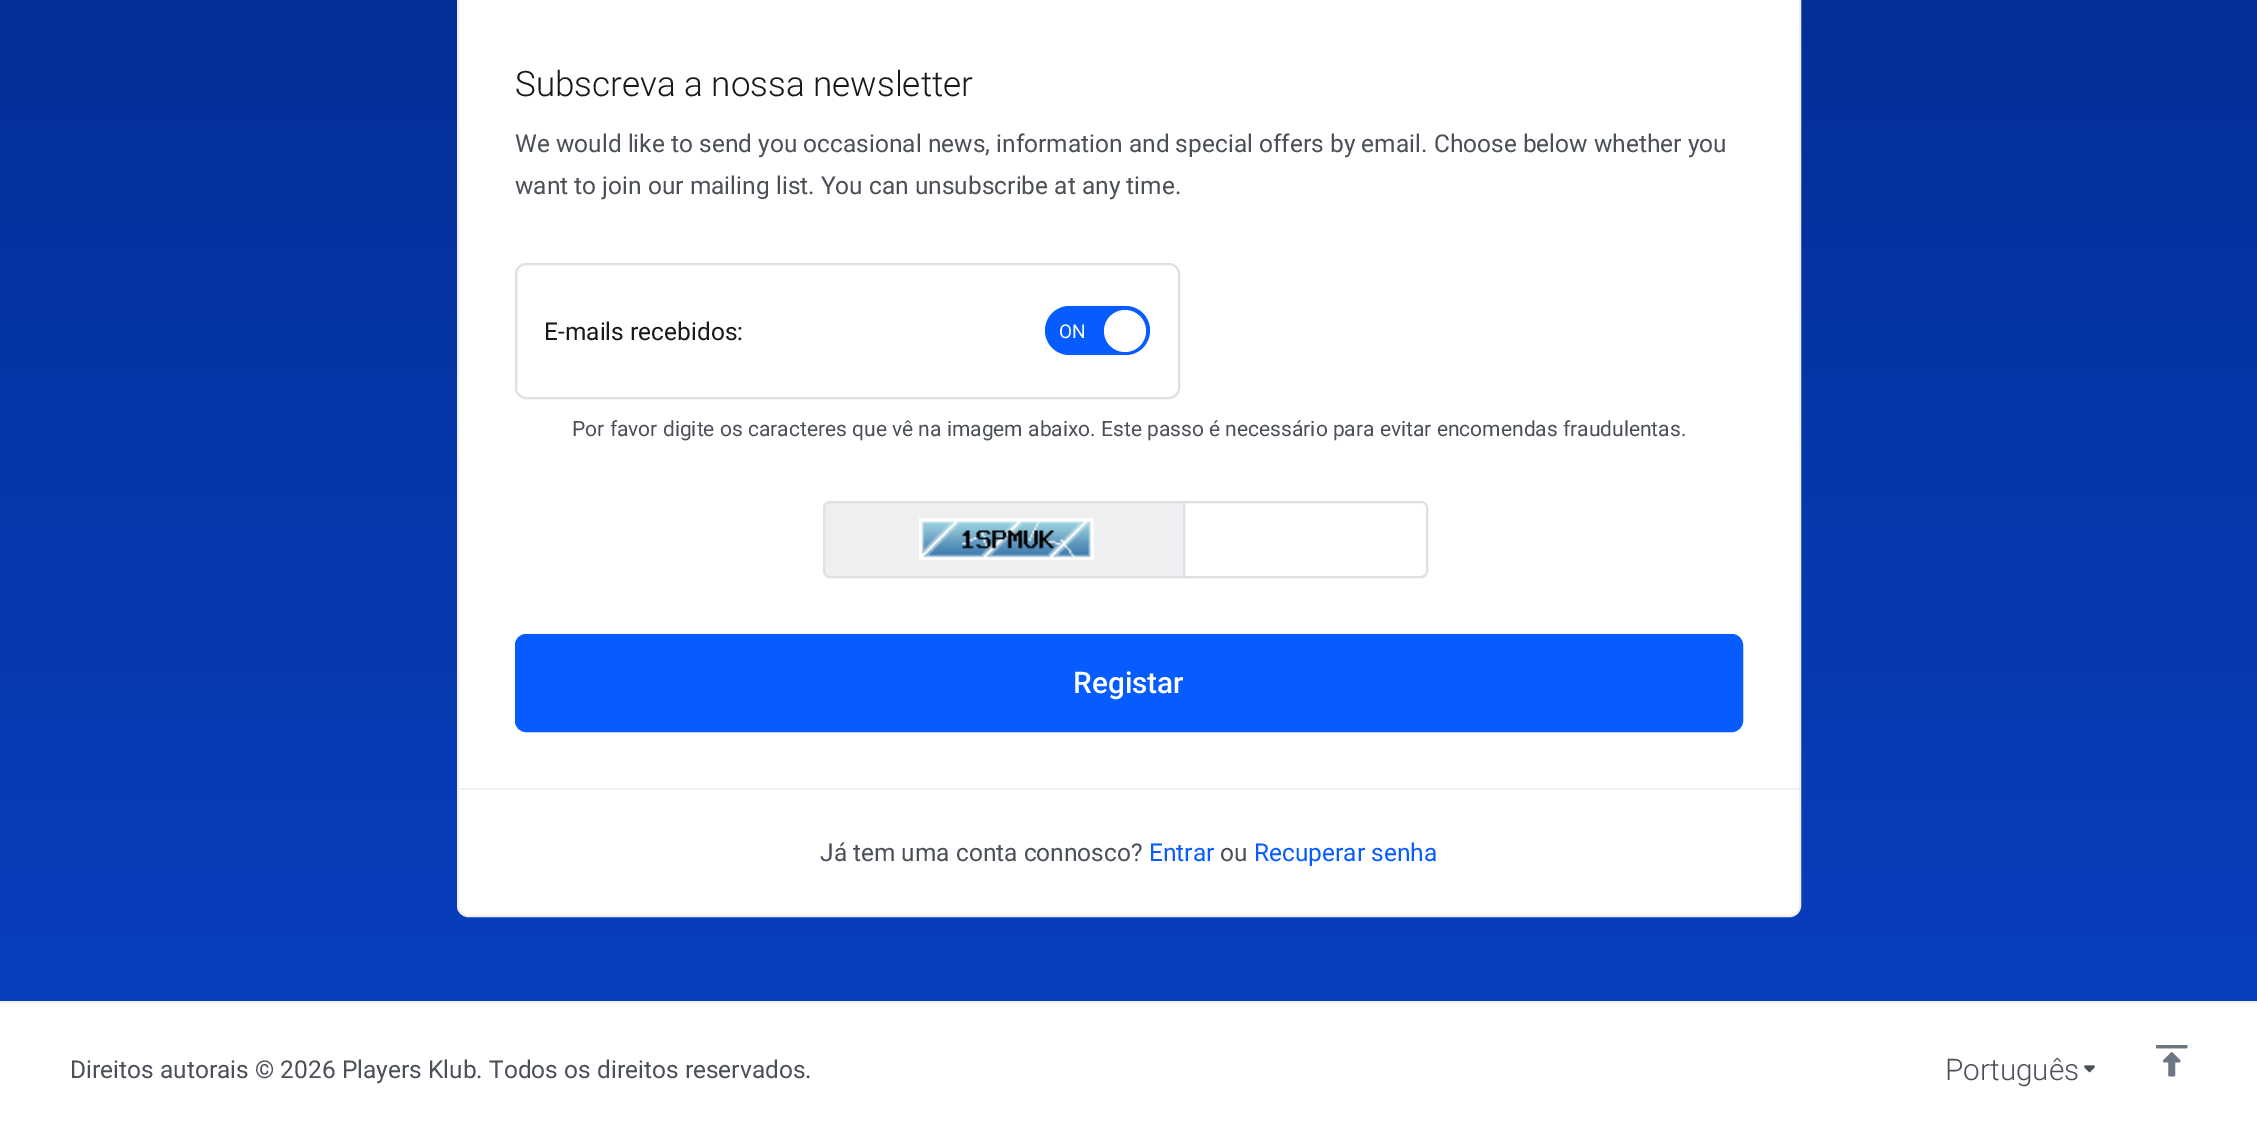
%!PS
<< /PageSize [2257 1135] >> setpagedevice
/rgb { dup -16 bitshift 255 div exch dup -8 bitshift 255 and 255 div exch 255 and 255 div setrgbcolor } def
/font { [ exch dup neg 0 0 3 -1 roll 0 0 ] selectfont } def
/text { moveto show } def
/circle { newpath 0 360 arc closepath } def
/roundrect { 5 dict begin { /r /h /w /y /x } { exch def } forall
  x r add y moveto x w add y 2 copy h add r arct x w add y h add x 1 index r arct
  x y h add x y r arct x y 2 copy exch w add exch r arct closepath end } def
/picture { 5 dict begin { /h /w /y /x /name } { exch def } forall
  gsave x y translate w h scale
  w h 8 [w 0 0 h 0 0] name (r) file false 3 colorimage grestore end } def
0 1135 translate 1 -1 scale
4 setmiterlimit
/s1 { /Roboto-Light 35 font 16#17191C rgb } def
/s2 { /Roboto-Regular 24.5 font 16#4B4F58 rgb } def
/s3 { /Roboto-Regular 24.5 font 16#17191C rgb } def
/s4 { /Roboto-Regular 19 font 16#FFFFFF rgb } def
/s5 { /Roboto-Regular 21 font 16#4B4F58 rgb } def
/s6 { /Roboto-Medium 29.75 font 16#FFFFFF rgb } def
/s7 { /Roboto-Regular 24.5 font 16#065CFE rgb } def
/s8 { /Roboto-Light 29.75 font 16#4B4F58 rgb } def
16#FFFFFF rgb
0 0 2257 1135 rectfill
gsave 0 0 moveto 2257 0 lineto 2257 1001 lineto 0 1001 lineto closepath clip newpath
<< /ShadingType 2 /ColorSpace /DeviceRGB /Coords [1129 1001 1129 -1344] /Extend [true true] /Function << /FunctionType 2 /Domain [0 1] /C0 [0.031 0.247 0.749] /C1 [0.004 0.102 0.384] /N 1 >> >> shfill grestore
458 -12 1342 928 10 roundrect gsave fill grestore
16#EFEFF1 rgb
2 setlinewidth
stroke
s1
(Subscreva a nossa newsletter) 515 96 text
s2
(We would like to send you occasional news, information and special offers by email. Choose below whether you) 515 152 text
(want to join our mailing list. You can unsubscribe at any time.) 515 194 text
16#DEE0E3 rgb
516 264 663 134 10 roundrect stroke
s3
(E-mails recebidos:) 544 340 text
16#065CFE rgb
1045 306 105 49 24.5 roundrect fill
s4
(ON) 1059 338 text
1125 331 21 circle fill
s5
(Por favor digite os caracteres que vê na imagem abaixo. Este passo é necessário para evitar encomendas fraudulentas.) 572 436 text
16#EFEFF1 rgb
830 502 moveto 1189 502 lineto 1189 577 lineto 830 577 lineto 826.5 577 824 574.5 824 571 curveto 824 508 lineto 824 504.5 826.5 502 830 502 curveto closepath gsave fill grestore
16#DEE0E3 rgb
stroke
(pic1.raw) 918 518 176 43 picture
16#FFFFFF rgb
1184 502 moveto 1421 502 lineto 1424.5 502 1427 504.5 1427 508 curveto 1427 571 lineto 1427 574.5 1424.5 577 1421 577 curveto 1184 577 lineto closepath gsave fill grestore
16#DEE0E3 rgb
stroke
16#065CFE rgb
516 635 1226 96 10 roundrect gsave fill grestore
stroke
s6
(Registar) 1073 693 text
16#EFEFF1 rgb
459 788 1340 2 rectfill
s2
(Já tem uma conta connosco?) 820 861 text
s7
(Entrar) 1149 861 text
s2
(ou) 1220 861 text
s7
(Recuperar senha) 1254 861 text
16#EFEFF1 rgb
0 1001 2257 2 rectfill
s2
(Direitos autorais © 2026 Players Klub. Todos os direitos reservados.) 70 1078 text
s8
(Português) 1945 1080 text
(pic2.raw) 2084 1065 11 8 picture
(pic3.raw) 2156 1045 32 32 picture
showpage
